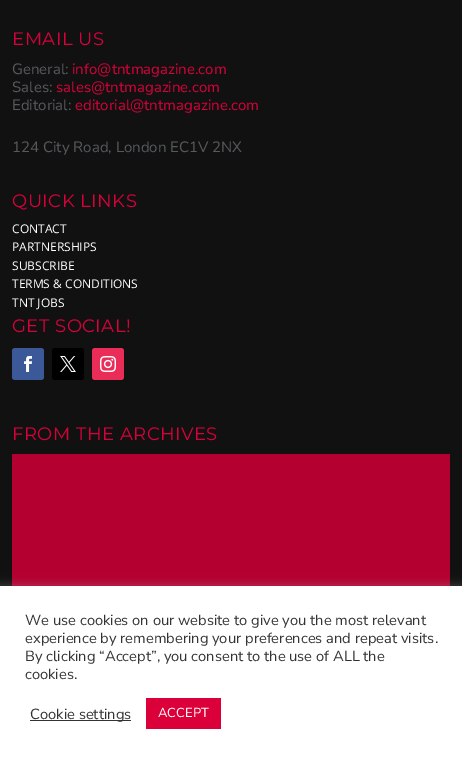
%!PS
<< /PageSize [462 759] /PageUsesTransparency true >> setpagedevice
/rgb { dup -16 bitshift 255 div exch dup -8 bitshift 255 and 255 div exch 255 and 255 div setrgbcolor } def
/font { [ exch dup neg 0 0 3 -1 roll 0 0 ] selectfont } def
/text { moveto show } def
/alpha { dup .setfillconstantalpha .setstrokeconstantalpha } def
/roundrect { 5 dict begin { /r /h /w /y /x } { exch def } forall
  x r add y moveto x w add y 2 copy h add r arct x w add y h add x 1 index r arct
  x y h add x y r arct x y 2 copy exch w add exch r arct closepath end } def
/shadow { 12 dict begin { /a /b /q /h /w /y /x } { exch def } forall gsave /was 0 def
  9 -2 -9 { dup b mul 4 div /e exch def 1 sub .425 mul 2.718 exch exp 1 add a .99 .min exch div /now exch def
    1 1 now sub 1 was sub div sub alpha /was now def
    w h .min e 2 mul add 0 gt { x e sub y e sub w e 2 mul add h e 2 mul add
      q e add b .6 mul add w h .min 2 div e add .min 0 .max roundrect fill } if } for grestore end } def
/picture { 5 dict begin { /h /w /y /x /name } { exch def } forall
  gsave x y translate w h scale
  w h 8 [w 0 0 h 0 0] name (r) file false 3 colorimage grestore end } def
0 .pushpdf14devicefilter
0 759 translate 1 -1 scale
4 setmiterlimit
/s1 { /NunitoSans-Regular 15 font 16#565A5C rgb } def
/s2 { /NunitoSans-Regular 15 font 16#DB003A rgb } def
/s3 { /OpenSans-Regular 12 font 16#FFFFFF rgb } def
/s4 { /NunitoSans-Regular 14.7 font 16#333333 rgb } def
/s5 { /NunitoSans-Regular 13 font 16#FFFFFF rgb } def
16#111111 rgb
0 0 462 759 rectfill
/Montserrat-Regular 18 font
16#DB003A rgb
12 45 moveto 0.5 0 (EMAIL US) ashow
s1
(General:) 12 74 text
s2
(info@tntmagazine.com) 72 74 text
s1
(Sales:) 12 92 text
s2
(sales@tntmagazine.com) 56 92 text
s1
(Editorial:) 12 110 text
s2
(editorial@tntmagazine.com) 75 110 text
s1
(124 City Road, London EC1V 2NX) 12 152 text
/Montserrat-Regular 18 font
16#DB003A rgb
12 207 moveto 0.5 0 (QUICK LINKS) ashow
s3
(CONTACT) 12 233 text
(PARTNERSHIPS) 12 251 text
(SUBSCRIBE) 12 270 text
(TERMS & CONDITIONS) 12 288 text
(TNT JOBS) 12 307 text
/Montserrat-Regular 18 font
16#DB003A rgb
12 332 moveto 0.5 0 (GET SOCIAL!) ashow
16#3B5998 rgb
12 348 32 32 3 roundrect fill
(pic1.raw) 24 356 8 16 picture
16#000000 rgb
52 348 32 32 3 roundrect fill
(pic2.raw) 60 356 16 16 picture
16#EA2C59 rgb
92 348 32 32 3 roundrect fill
(pic3.raw) 100 356 16 16 picture
16#DB003A rgb
12 440 moveto 0.5 0 (FROM THE ARCHIVES) ashow
16#B30030 rgb
12 454 438 132 rectfill
16#ACABAB rgb
0 585 462 173 0 5 0.3 shadow
16#FFFFFF rgb
0 586 462 173 rectfill
s4
(We use cookies on our website to give you the most relevant) 25 625 text
(experience by remembering your preferences and repeat visits.) 25 643 text
(By clicking “Accept”, you consent to the use of ALL the) 25 661 text
(cookies.) 25 679 text
30 720 101 1 rectfill
(Cookie settings) 30 719 text
16#DB003A rgb
146 698 75 31 rectfill
s5
(ACCEPT) 158 717 text
.poppdf14devicefilter showpage
